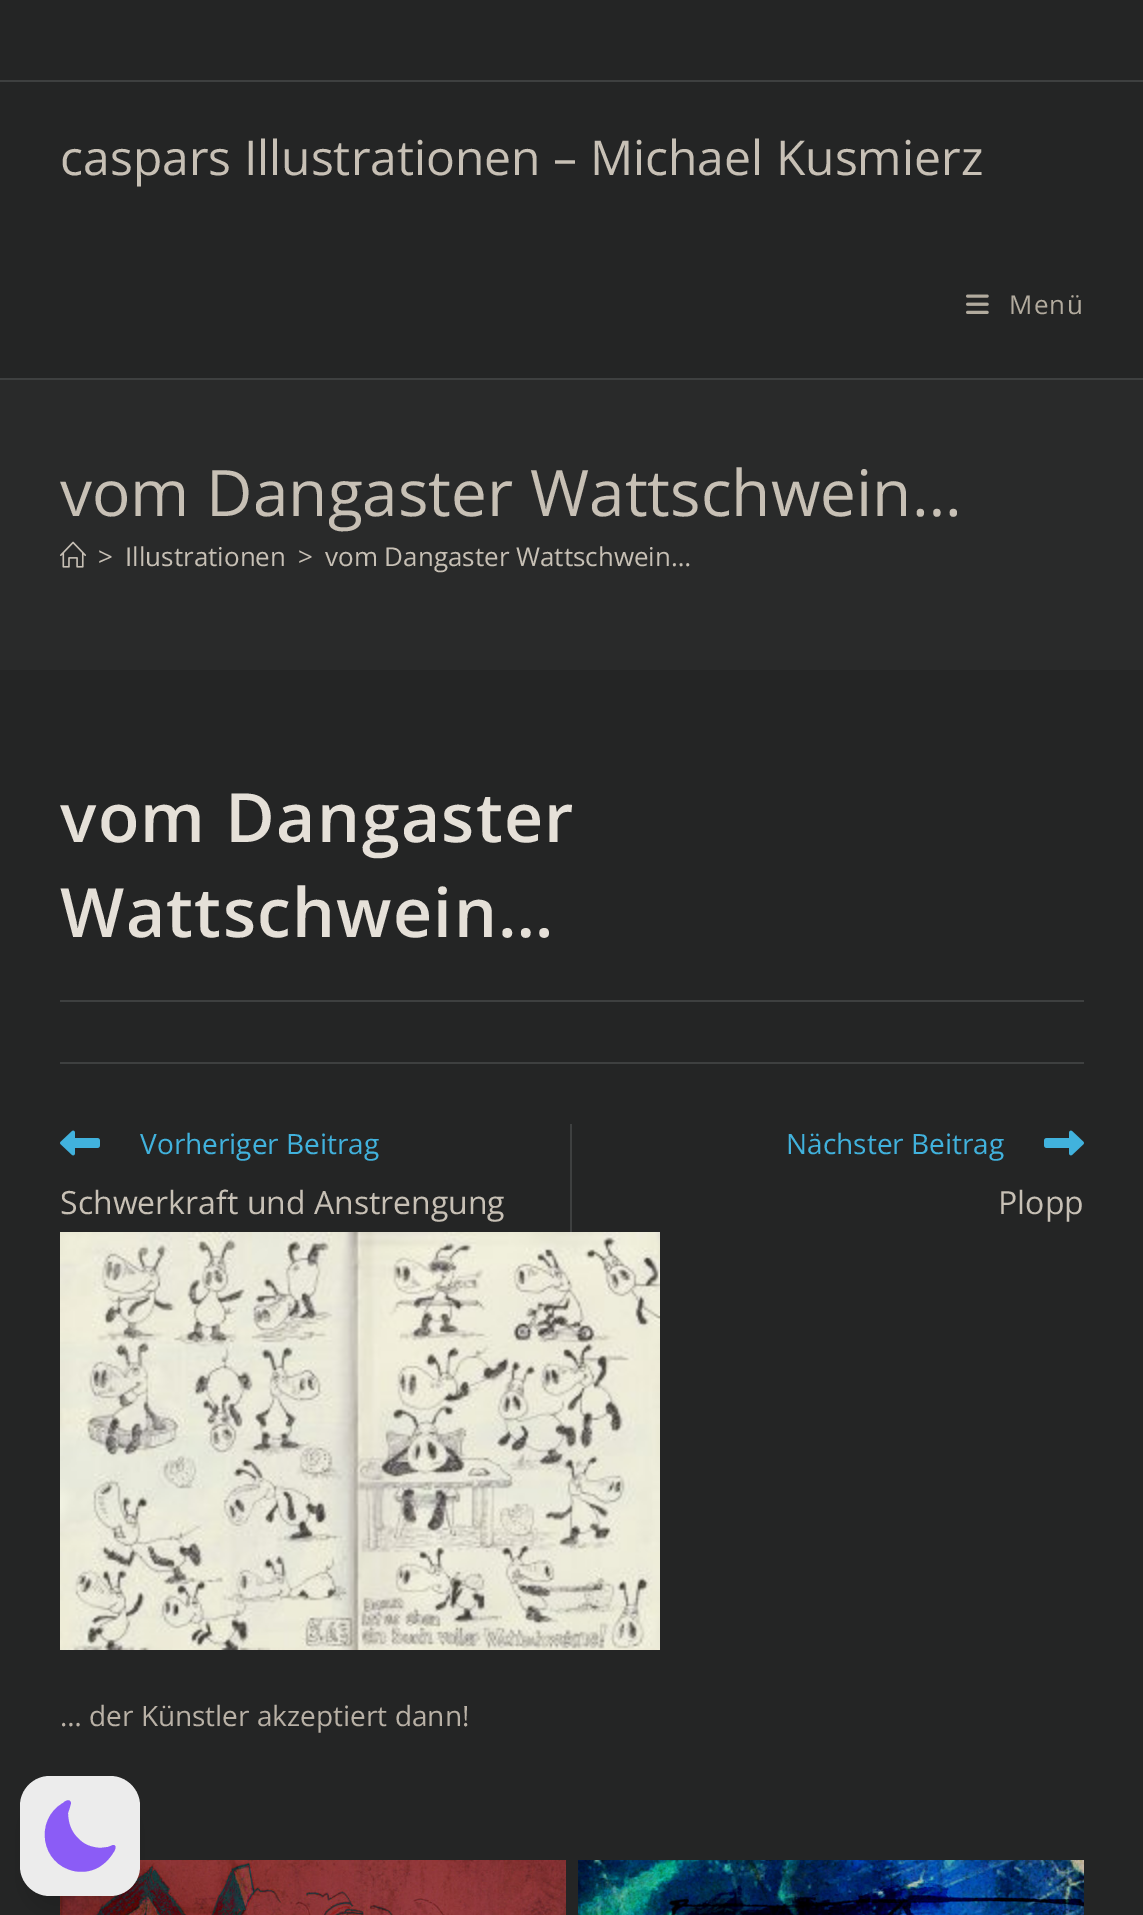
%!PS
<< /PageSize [1143 1915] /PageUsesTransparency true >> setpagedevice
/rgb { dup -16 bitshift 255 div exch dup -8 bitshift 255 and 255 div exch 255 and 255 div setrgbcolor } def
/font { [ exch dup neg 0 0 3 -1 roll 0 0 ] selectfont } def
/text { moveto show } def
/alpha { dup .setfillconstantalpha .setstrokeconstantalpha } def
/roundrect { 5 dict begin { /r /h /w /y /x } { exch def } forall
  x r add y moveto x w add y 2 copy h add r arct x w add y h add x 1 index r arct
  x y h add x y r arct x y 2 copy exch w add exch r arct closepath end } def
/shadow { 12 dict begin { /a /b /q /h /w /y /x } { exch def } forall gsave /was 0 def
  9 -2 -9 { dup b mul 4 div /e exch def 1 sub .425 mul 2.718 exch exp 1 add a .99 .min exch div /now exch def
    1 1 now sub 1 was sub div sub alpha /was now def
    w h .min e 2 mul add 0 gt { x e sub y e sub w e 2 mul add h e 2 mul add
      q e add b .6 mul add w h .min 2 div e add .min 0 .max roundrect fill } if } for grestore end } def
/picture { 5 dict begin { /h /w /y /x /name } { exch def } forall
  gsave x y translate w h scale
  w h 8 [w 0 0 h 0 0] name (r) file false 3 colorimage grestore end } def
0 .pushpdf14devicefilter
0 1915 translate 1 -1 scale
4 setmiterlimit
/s1 { /OpenSans-Regular 48 font 16#C7C0B5 rgb } def
/s2 { /OpenSans-Regular 64 font 16#C7C0B5 rgb } def
/s3 { /OpenSans-Regular 26 font 16#C7C0B5 rgb } def
/s4 { /OpenSans-Regular 28 font 16#41B2DD rgb } def
/s5 { /OpenSans-Regular 32 font 16#C7C0B5 rgb } def
/s6 { /OpenSans-Regular 28 font 16#B9B1A6 rgb } def
16#242525 rgb
0 0 1143 1915 rectfill
16#3E4040 rgb
0 80 1143 2 rectfill
0 378 1143 2 rectfill
s1
(caspars Illustrationen – Michael Kusmierz) 60 175 text
(pic1.raw) 966 294 23 20 picture
/OpenSans-Regular 26 font
16#B2AB9E rgb
1009 314 moveto 1.25 0 (Menü) ashow
16#292A2A rgb
0 380 1143 290 rectfill
s2
(vom Dangaster Wattschwein…) 60 516 text
(pic2.raw) 60 541 26 27 picture
s3
(>) 98 566 text
(Illustrationen) 125 566 text
(>) 298 566 text
(vom Dangaster Wattschwein…) 325 566 text
16#3E4040 rgb
60 1000 1024 2 rectfill
/OpenSans-SemiBold 68 font
16#E5E0D8 rgb
60 842 moveto 1.25 0 (vom Dangaster) ashow
60 937 moveto 1.25 0 (Wattschwein…) ashow
16#3E4040 rgb
60 1062 1024 2 rectfill
570 1124 2 108 rectfill
(pic3.raw) 60 1130 40 26 picture
s4
(Vorheriger Beitrag) 140 1154 text
s5
(Schwerkraft und Anstrengung) 60 1214 text
s4
(Nächster Beitrag) 786 1154 text
(pic4.raw) 1044 1130 40 26 picture
s5
(Plopp) 998 1214 text
(pic5.raw) 60 1232 600 418 picture
s6
(… der Künstler akzeptiert dann!) 60 1726 text
(pic6.raw) 60 1860 506 55 picture
(pic7.raw) 578 1860 506 55 picture
16#000000 rgb
28 1792 104 104 22 6 0.1 shadow
26 1802 108 108 24 15 0.1 shadow
16#ECECEC rgb
20 1776 120 120 30 roundrect fill
16#8B5CF6 rgb
70 1801 moveto 72 1803 70 1805 70 1807 curveto 68 1813 lineto 68 1822 71 1832 78 1838 curveto 84 1845 91 1847 100 1848 curveto 108 1847 lineto 113 1845 lineto 118 1845 114 1852 113 1853 curveto 110 1858 106 1862 102 1865 curveto 94 1871 84 1873 74 1871 curveto 41 1864 34 1820 63 1803 curveto 64 1802 68 1799 70 1801 curveto closepath eofill
.poppdf14devicefilter showpage
